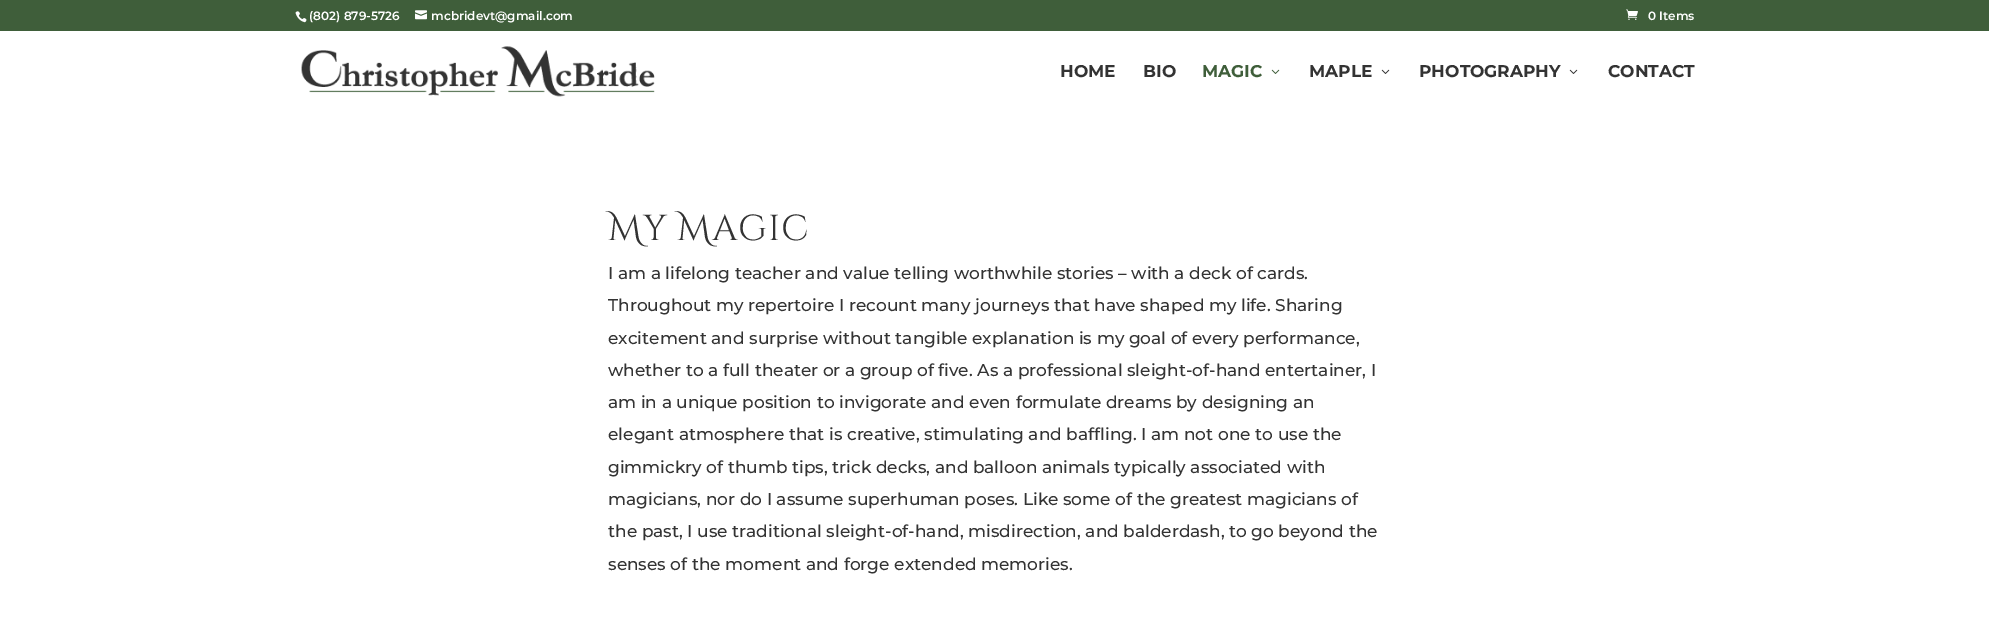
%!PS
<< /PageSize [1989 640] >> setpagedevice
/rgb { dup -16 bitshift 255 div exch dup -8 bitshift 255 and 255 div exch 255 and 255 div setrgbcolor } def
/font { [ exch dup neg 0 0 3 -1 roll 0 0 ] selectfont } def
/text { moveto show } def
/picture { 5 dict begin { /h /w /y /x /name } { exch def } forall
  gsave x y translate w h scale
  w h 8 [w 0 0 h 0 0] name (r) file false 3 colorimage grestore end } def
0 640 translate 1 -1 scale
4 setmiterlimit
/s1 { /Montserrat-SemiBold 12 font 16#FFFFFF rgb } def
/s2 { /Montserrat-Bold 17 font 16#333333 rgb } def
/s3 { /Montserrat-Bold 17 font 16#3F5E3A rgb } def
/s4 { /Montserrat-Medium 17 font 16#333333 rgb } def
16#FFFFFF rgb
0 0 1989 640 rectfill
16#3F5E3A rgb
0 0 1989 31 rectfill
(pic1.raw) 295 11 12 12 picture
s1
(\(802\) 879-5726) 309 20 text
(pic2.raw) 415 10 12 10 picture
(mcbridevt@gmail.com) 431 20 text
(pic3.raw) 1626 9 12 11 picture
(0 Items) 1648 20 text
(pic4.raw) 301 46 354 51 picture
s2
(HOME) 1060 77 text
(BIO) 1143 77 text
s3
(MAGIC) 1202 77 text
(pic5.raw) 1271 69 9 5 picture
s2
(MAPLE) 1309 77 text
(pic6.raw) 1381 69 9 5 picture
(PHOTOGRAPHY) 1419 77 text
(pic6.raw) 1569 69 9 5 picture
(CONTACT) 1608 77 text
/CinzelDecorative-Regular 36 font
608 240 moveto 1 0 (My Magic) ashow
s4
(I am a lifelong teacher and value telling worthwhile stories – with a deck of cards.) 608 279 text
(Throughout my repertoire I recount many journeys that have shaped my life. Sharing) 608 311 text
(excitement and surprise without tangible explanation is my goal of every performance,) 608 344 text
(whether to a full theater or a group of five. As a professional sleight-of-hand entertainer, I) 608 376 text
(am in a unique position to invigorate and even formulate dreams by designing an) 608 408 text
(elegant atmosphere that is creative, stimulating and baffling. I am not one to use the) 608 440 text
(gimmickry of thumb tips, trick decks, and balloon animals typically associated with) 608 473 text
(magicians, nor do I assume superhuman poses. Like some of the greatest magicians of) 608 505 text
(the past, I use traditional sleight-of-hand, misdirection, and balderdash, to go beyond the) 608 537 text
(senses of the moment and forge extended memories.) 608 570 text
showpage
